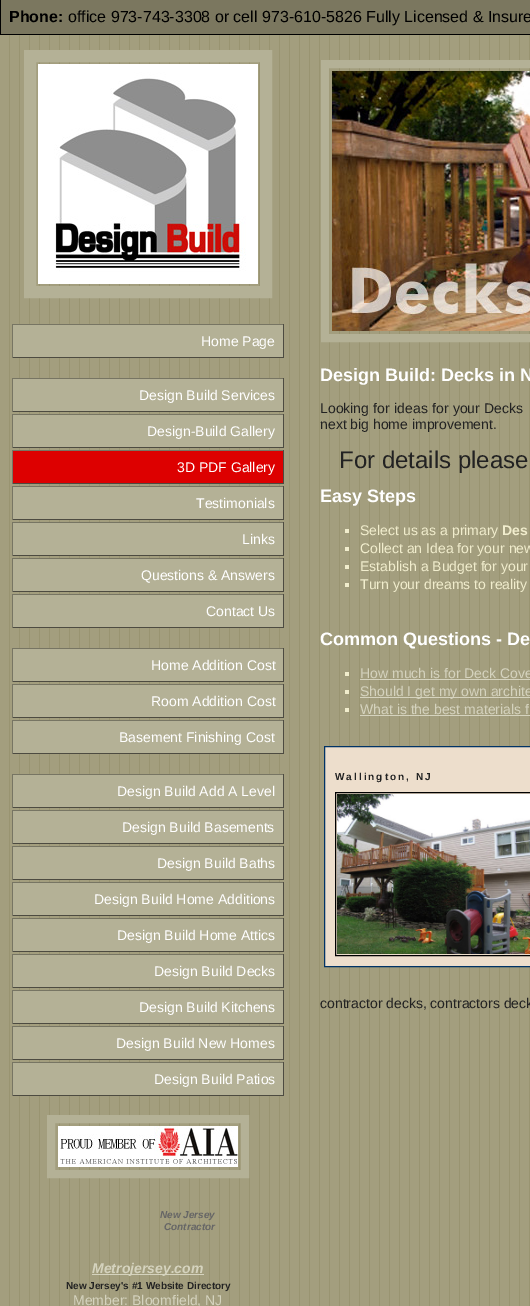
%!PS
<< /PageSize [530 1306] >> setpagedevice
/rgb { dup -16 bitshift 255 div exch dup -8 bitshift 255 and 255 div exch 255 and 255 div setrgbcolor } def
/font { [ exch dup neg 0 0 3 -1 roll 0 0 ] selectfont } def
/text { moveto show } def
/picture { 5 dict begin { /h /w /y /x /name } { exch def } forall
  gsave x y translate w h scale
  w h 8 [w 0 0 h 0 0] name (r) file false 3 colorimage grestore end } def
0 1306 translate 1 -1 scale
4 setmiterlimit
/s1 { /LiberationSans-Bold 16 font 16#000000 rgb } def
/s2 { /LiberationSans-Regular 16 font 16#000000 rgb } def
/s3 { /LiberationSans-Regular 14 font 16#FFFFFF rgb } def
/s4 { /LiberationSans-BoldItalic 10 font 16#666666 rgb } def
/s5 { /LiberationSans-BoldItalic 14 font 16#D5D3BE rgb } def
/s6 { /LiberationSans-Bold 10 font 16#222222 rgb } def
/s7 { /LiberationSans-Regular 14 font 16#D5D3BE rgb } def
/s8 { /LiberationSans-Bold 18 font 16#FFFFFF rgb } def
/s9 { /LiberationSans-Regular 14 font 16#222222 rgb } def
/s10 { /LiberationSans-Regular 24 font 16#222222 rgb } def
/s11 { /LiberationSans-Regular 14 font 16#F1EDCD rgb } def
/s12 { /LiberationSans-Bold 14 font 16#F1EDCD rgb } def
16#FFFFFF rgb
0 0 530 1306 rectfill
(pic1.raw) 0 35 530 1271 picture
16#7B775F rgb
1 0 529 34 rectfill
16#000000 rgb
0 34 530 1 rectfill
0 0 1 35 rectfill
s1
(Phone:) 9 22 text
s2
(office 973-743-3308 or cell 973-610-5826 Fully Licensed & Insure) 68 22 text
16#B4B196 rgb
12 setlinewidth
30 56 236 236 rectstroke
(pic2.raw) 38 64 220 220 picture
13 325 270 32 rectfill
16#777563 rgb
12 324 272 1 rectfill
16#4D4B41 rgb
283 324 1 34 rectfill
12 357 272 1 rectfill
16#777563 rgb
12 324 1 34 rectfill
s3
(Home Page) 201 346 text
16#B4B196 rgb
13 379 270 32 rectfill
16#777563 rgb
12 378 272 1 rectfill
16#4D4B41 rgb
283 378 1 34 rectfill
12 411 272 1 rectfill
16#777563 rgb
12 378 1 34 rectfill
s3
(Design Build Services) 139 400 text
16#B4B196 rgb
13 415 270 32 rectfill
16#777563 rgb
12 414 272 1 rectfill
16#4D4B41 rgb
283 414 1 34 rectfill
12 447 272 1 rectfill
16#777563 rgb
12 414 1 34 rectfill
s3
(Design-Build Gallery) 147 436 text
16#DD0000 rgb
13 451 270 32 rectfill
16#777563 rgb
12 450 272 1 rectfill
16#4D4B41 rgb
283 450 1 34 rectfill
12 483 272 1 rectfill
16#777563 rgb
12 450 1 34 rectfill
s3
(3D PDF Gallery) 177 472 text
16#B4B196 rgb
13 487 270 32 rectfill
16#777563 rgb
12 486 272 1 rectfill
16#4D4B41 rgb
283 486 1 34 rectfill
12 519 272 1 rectfill
16#777563 rgb
12 486 1 34 rectfill
s3
(Testimonials) 196 508 text
16#B4B196 rgb
13 523 270 32 rectfill
16#777563 rgb
12 522 272 1 rectfill
16#4D4B41 rgb
283 522 1 34 rectfill
12 555 272 1 rectfill
16#777563 rgb
12 522 1 34 rectfill
s3
(Links) 242 544 text
16#B4B196 rgb
13 559 270 32 rectfill
16#777563 rgb
12 558 272 1 rectfill
16#4D4B41 rgb
283 558 1 34 rectfill
12 591 272 1 rectfill
16#777563 rgb
12 558 1 34 rectfill
s3
(Questions & Answers) 141 580 text
16#B4B196 rgb
13 595 270 32 rectfill
16#777563 rgb
12 594 272 1 rectfill
16#4D4B41 rgb
283 594 1 34 rectfill
12 627 272 1 rectfill
16#777563 rgb
12 594 1 34 rectfill
s3
(Contact Us) 206 616 text
16#B4B196 rgb
13 649 270 32 rectfill
16#777563 rgb
12 648 272 1 rectfill
16#4D4B41 rgb
283 648 1 34 rectfill
12 681 272 1 rectfill
16#777563 rgb
12 648 1 34 rectfill
s3
(Home Addition Cost) 151 670 text
16#B4B196 rgb
13 685 270 32 rectfill
16#777563 rgb
12 684 272 1 rectfill
16#4D4B41 rgb
283 684 1 34 rectfill
12 717 272 1 rectfill
16#777563 rgb
12 684 1 34 rectfill
s3
(Room Addition Cost) 151 706 text
16#B4B196 rgb
13 721 270 32 rectfill
16#777563 rgb
12 720 272 1 rectfill
16#4D4B41 rgb
283 720 1 34 rectfill
12 753 272 1 rectfill
16#777563 rgb
12 720 1 34 rectfill
s3
(Basement Finishing Cost) 119 742 text
16#B4B196 rgb
13 775 270 32 rectfill
16#777563 rgb
12 774 272 1 rectfill
16#4D4B41 rgb
283 774 1 34 rectfill
12 807 272 1 rectfill
16#777563 rgb
12 774 1 34 rectfill
s3
(Design Build Add A Level) 117 796 text
16#B4B196 rgb
13 811 270 32 rectfill
16#777563 rgb
12 810 272 1 rectfill
16#4D4B41 rgb
283 810 1 34 rectfill
12 843 272 1 rectfill
16#777563 rgb
12 810 1 34 rectfill
s3
(Design Build Basements) 122 832 text
16#B4B196 rgb
13 847 270 32 rectfill
16#777563 rgb
12 846 272 1 rectfill
16#4D4B41 rgb
283 846 1 34 rectfill
12 879 272 1 rectfill
16#777563 rgb
12 846 1 34 rectfill
s3
(Design Build Baths) 157 868 text
16#B4B196 rgb
13 883 270 32 rectfill
16#777563 rgb
12 882 272 1 rectfill
16#4D4B41 rgb
283 882 1 34 rectfill
12 915 272 1 rectfill
16#777563 rgb
12 882 1 34 rectfill
s3
(Design Build Home Additions) 94 904 text
16#B4B196 rgb
13 919 270 32 rectfill
16#777563 rgb
12 918 272 1 rectfill
16#4D4B41 rgb
283 918 1 34 rectfill
12 951 272 1 rectfill
16#777563 rgb
12 918 1 34 rectfill
s3
(Design Build Home Attics) 117 940 text
16#B4B196 rgb
13 955 270 32 rectfill
16#777563 rgb
12 954 272 1 rectfill
16#4D4B41 rgb
283 954 1 34 rectfill
12 987 272 1 rectfill
16#777563 rgb
12 954 1 34 rectfill
s3
(Design Build Decks) 154 976 text
16#B4B196 rgb
13 991 270 32 rectfill
16#777563 rgb
12 990 272 1 rectfill
16#4D4B41 rgb
283 990 1 34 rectfill
12 1023 272 1 rectfill
16#777563 rgb
12 990 1 34 rectfill
s3
(Design Build Kitchens) 139 1012 text
16#B4B196 rgb
13 1027 270 32 rectfill
16#777563 rgb
12 1026 272 1 rectfill
16#4D4B41 rgb
283 1026 1 34 rectfill
12 1059 272 1 rectfill
16#777563 rgb
12 1026 1 34 rectfill
s3
(Design Build New Homes) 116 1048 text
16#B4B196 rgb
13 1063 270 32 rectfill
16#777563 rgb
12 1062 272 1 rectfill
16#4D4B41 rgb
283 1062 1 34 rectfill
12 1095 272 1 rectfill
16#777563 rgb
12 1062 1 34 rectfill
s3
(Design Build Patios) 154 1084 text
16#B4B196 rgb
8 setlinewidth
51 1119 194 55 rectstroke
(pic3.raw) 58 1126 180 41 picture
s4
(New Jersey) 160 1218 text
(Contractor) 164 1230 text
16#D5D3BE rgb
92 1274 112 1 rectfill
s5
(Metrojersey.com) 92 1273 text
s6
(New Jersey's #1 Website Directory) 66 1289 text
s7
(Member: Bloomfield, NJ) 73 1305 text
16#B4B196 rgb
325 64 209 274 rectstroke
(pic4.raw) 332 71 198 260 picture
s8
(Design Build: Decks in N) 320 381 text
/LiberationSans-Regular 14 font
16#222222 rgb
320 413 moveto 0.5 0 32 (Looking for ideas for your Decks) widthshow
(next big home improvement.) 320 429 text
s10
(For details please) 339 468 text
s8
(Easy Steps) 320 502 text
16#F1EDCD rgb
345 529 4 4 rectfill
s11
(Select us as a primary) 360 535 text
s12
(Des) 502 535 text
345 547 4 4 rectfill
s11
(Collect an Idea for your new) 360 553 text
345 565 4 4 rectfill
(Establish a Budget for your) 360 571 text
345 583 4 4 rectfill
(Turn your dreams to reality) 360 589 text
s8
(Common Questions - De) 320 645 text
16#F1EDCD rgb
345 672 4 4 rectfill
s7
(How much is for Deck Cove) 360 678 text
360 679 170 1 rectfill
16#F1EDCD rgb
345 690 4 4 rectfill
16#D5D3BE rgb
360 697 170 1 rectfill
(Should I get my own archite) 360 696 text
16#F1EDCD rgb
345 708 4 4 rectfill
s7
(What is the best materials f) 360 714 text
360 715 170 1 rectfill
16#EDDECC rgb
324.5 746.5 moveto 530.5 746.5 lineto 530.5 966.5 lineto 324.5 966.5 lineto closepath gsave fill grestore
16#003366 rgb
1 setlinewidth
stroke
/LiberationSans-Bold 10 font
16#222222 rgb
335 780 moveto 2 0 (Wallington, NJ) ashow
16#000000 rgb
335.5 792.5 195 163 rectstroke
(pic5.raw) 337 794 193 160 picture
s9
(contractor decks, contractors deck) 320 1008 text
showpage
